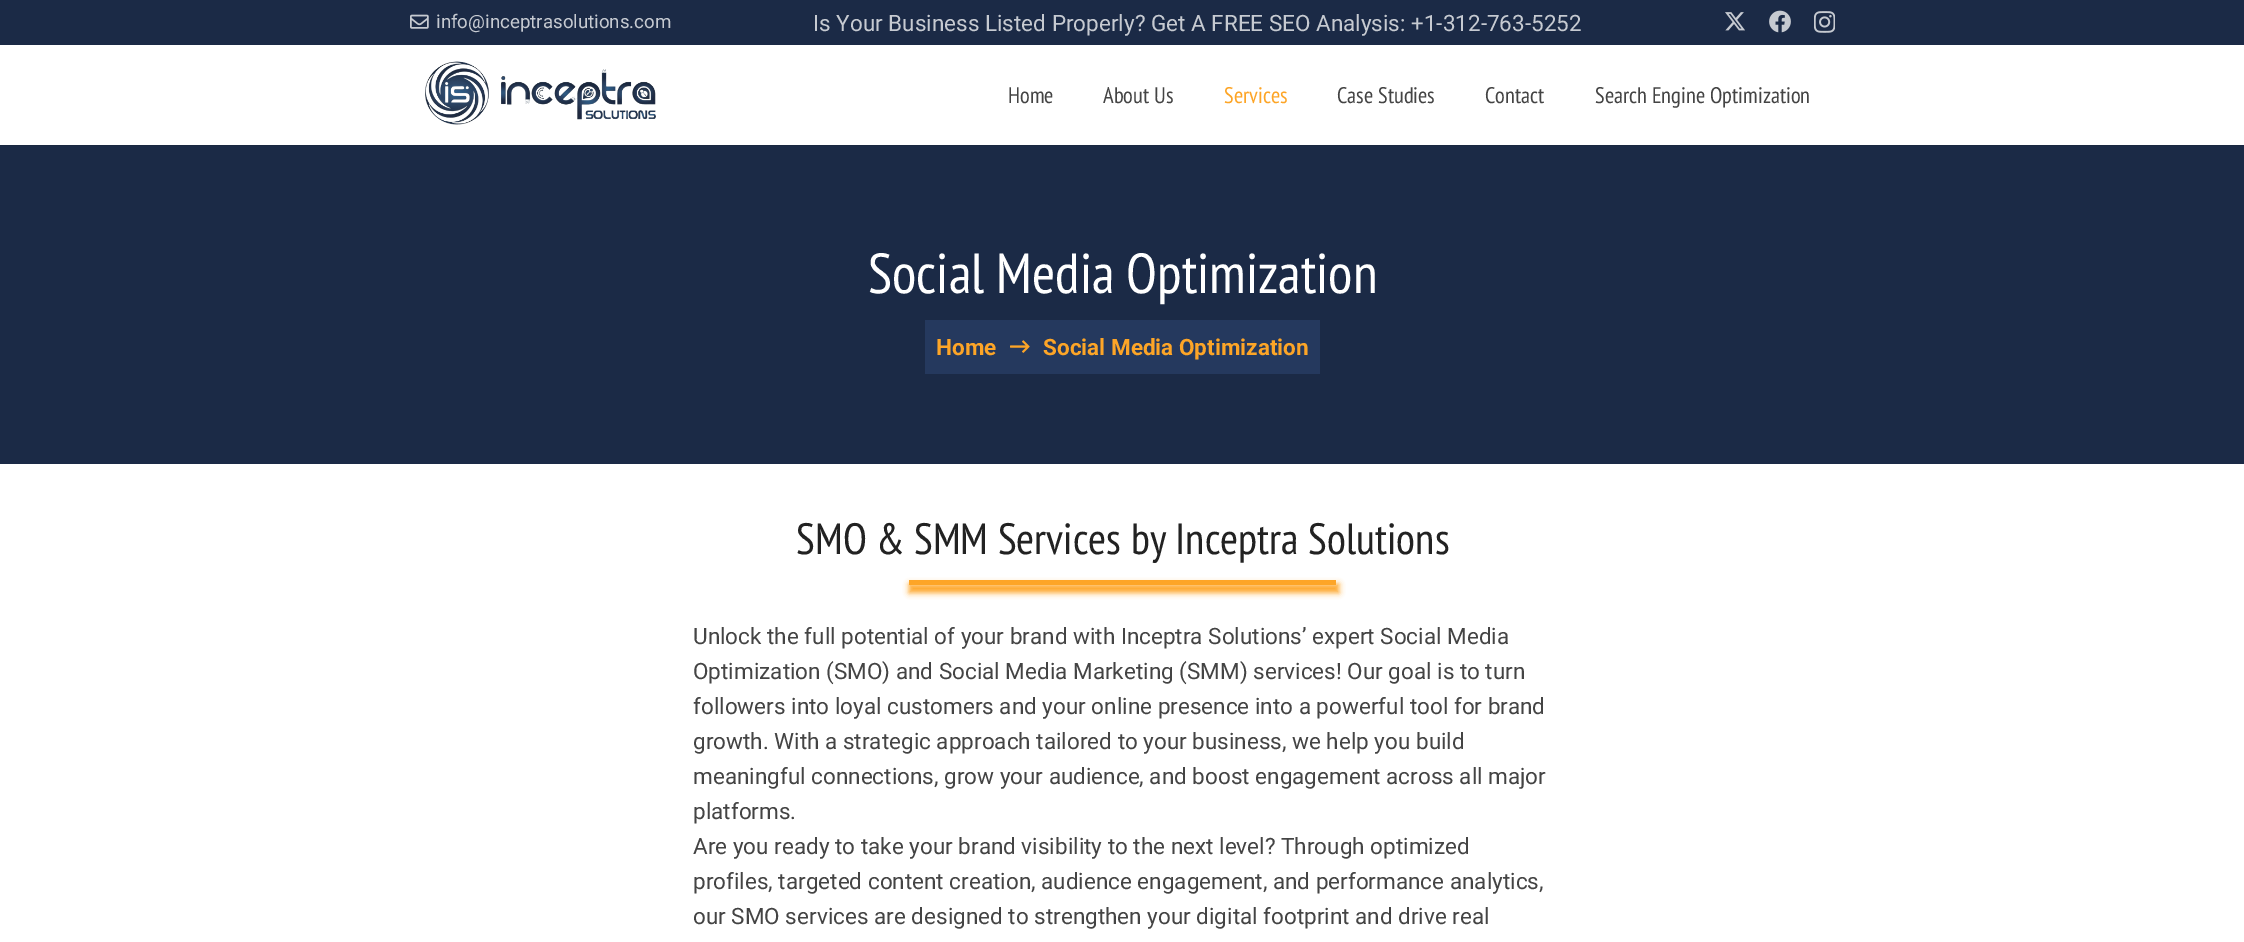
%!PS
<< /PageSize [2244 942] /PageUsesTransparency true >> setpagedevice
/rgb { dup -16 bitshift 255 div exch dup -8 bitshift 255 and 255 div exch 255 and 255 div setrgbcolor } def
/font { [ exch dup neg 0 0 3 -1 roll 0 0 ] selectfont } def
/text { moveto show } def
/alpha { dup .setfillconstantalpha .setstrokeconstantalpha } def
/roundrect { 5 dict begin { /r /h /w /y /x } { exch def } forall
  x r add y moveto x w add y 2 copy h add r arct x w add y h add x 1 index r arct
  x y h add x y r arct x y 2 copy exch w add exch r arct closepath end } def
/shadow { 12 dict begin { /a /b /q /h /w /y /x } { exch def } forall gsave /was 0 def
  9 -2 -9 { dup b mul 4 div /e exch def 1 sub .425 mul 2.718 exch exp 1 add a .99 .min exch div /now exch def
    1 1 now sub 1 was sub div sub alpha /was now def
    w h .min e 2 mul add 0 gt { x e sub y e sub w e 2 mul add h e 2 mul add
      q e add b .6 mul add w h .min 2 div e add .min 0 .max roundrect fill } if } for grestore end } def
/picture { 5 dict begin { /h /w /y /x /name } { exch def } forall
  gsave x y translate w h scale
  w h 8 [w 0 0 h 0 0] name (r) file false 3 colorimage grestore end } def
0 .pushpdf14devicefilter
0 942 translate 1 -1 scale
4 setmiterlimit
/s1 { /Roboto-Regular 18.75 font 16#C6CAD1 rgb } def
/s2 { /Roboto-Regular 22.5 font 16#C6CAD1 rgb } def
/s3 { /PTSansNarrow-Regular 22.5 font 16#444444 rgb } def
/s4 { /PTSansNarrow-Regular 22.5 font 16#FDA527 rgb } def
/s5 { /PTSansNarrow-Regular 56.25 font 16#FFFFFF rgb } def
/s6 { /Roboto-Bold 22.5 font 16#FDA527 rgb } def
/s7 { /PTSansNarrow-Regular 43.75 font 16#222222 rgb } def
/s8 { /Roboto-Regular 22.5 font 16#444444 rgb } def
16#FFFFFF rgb
0 0 2244 942 rectfill
16#1B2A46 rgb
0 0 2244 464 rectfill
(pic1.raw) 410 14 19 15 picture
s1
(info@inceptrasolutions.com) 436 28 text
s2
(Is Your Business Listed Properly? Get A FREE SEO Analysis: +1-312-763-5252) 813 31 text
(pic2.raw) 1725 12 20 19 picture
(pic3.raw) 1769 10 22 23 picture
(pic4.raw) 1814 11 21 22 picture
16#192740 rgb
0 145 2244 1 rectfill
16#FFFFFF rgb
0 45 2244 100 rectfill
(pic5.raw) 425 61 231 64 picture
s3
(Home) 1008 103 text
(About Us) 1103 103 text
s4
(Services) 1224 103 text
s3
(Case Studies) 1337 103 text
(Contact) 1485 103 text
(Search Engine Optimization) 1595 103 text
s5
(Social Media Optimization) 868 293 text
16#25395E rgb
925 320 395 54 rectfill
s6
(Home) 936 355 text
(pic6.raw) 1010 340 20 13 picture
(Social Media Optimization) 1043 355 text
s7
(SMO & SMM Services by Inceptra Solutions) 796 554 text
16#FDA527 rgb
909 584 430 9 0 3 1 shadow
909 580 427 5 rectfill
s8
(Unlock the full potential of your brand with Inceptra Solutions’ expert Social Media) 693 644 text
(Optimization \(SMO\) and Social Media Marketing \(SMM\) services! Our goal is to turn) 693 679 text
(followers into loyal customers and your online presence into a powerful tool for brand) 693 714 text
(growth. With a strategic approach tailored to your business, we help you build) 693 749 text
(meaningful connections, grow your audience, and boost engagement across all major) 693 784 text
(platforms.) 693 819 text
(Are you ready to take your brand visibility to the next level? Through optimized) 693 854 text
(profiles, targeted content creation, audience engagement, and performance analytics,) 693 889 text
(our SMO services are designed to strengthen your digital footprint and drive real) 693 924 text
.poppdf14devicefilter showpage
